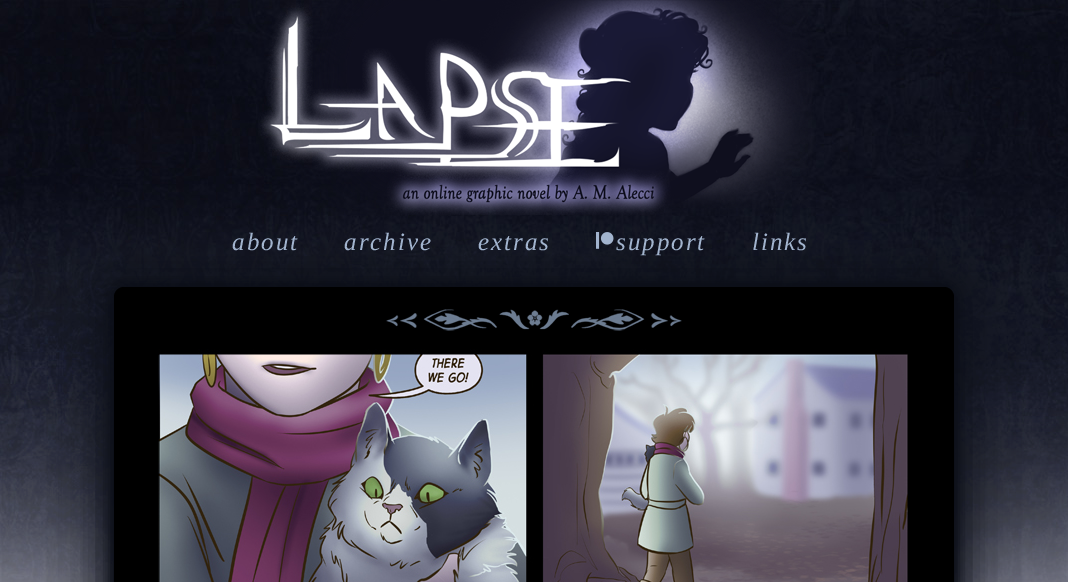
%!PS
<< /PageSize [1068 582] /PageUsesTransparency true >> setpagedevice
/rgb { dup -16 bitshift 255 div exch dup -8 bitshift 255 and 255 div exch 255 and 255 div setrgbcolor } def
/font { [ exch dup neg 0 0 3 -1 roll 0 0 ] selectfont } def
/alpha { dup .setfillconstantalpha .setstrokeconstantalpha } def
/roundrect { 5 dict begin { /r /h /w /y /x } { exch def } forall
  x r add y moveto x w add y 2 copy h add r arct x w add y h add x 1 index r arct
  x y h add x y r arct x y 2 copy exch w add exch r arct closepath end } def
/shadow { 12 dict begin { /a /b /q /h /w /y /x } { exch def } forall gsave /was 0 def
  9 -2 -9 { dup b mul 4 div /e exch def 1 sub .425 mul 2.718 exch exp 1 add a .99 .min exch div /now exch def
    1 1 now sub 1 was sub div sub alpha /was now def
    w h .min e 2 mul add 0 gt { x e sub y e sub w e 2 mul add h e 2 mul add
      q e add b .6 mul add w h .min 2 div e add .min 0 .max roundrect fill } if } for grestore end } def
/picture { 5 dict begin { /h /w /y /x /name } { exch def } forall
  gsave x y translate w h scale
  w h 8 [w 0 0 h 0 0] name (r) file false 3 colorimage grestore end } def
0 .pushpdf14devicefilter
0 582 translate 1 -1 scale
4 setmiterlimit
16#FFFFFF rgb
0 0 1068 582 rectfill
(pic1.raw) 0 0 1068 582 picture
16#0B0E17 rgb
24 197 1020 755 100 90 0.2 shadow
89 262 890 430 35 25 0.4 shadow
99 272 870 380 25 15 0.6 shadow
109 282 850 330 15 5 0.95 shadow
16#000000 rgb
114 287 840 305 10 roundrect fill
(pic2.raw) 386 313 32 15 picture
(pic3.raw) 423 309 74 22 picture
(pic4.raw) 499 309 70 21 picture
(pic5.raw) 571 309 74 22 picture
(pic6.raw) 650 313 32 15 picture
(pic7.raw) 158 349 750 233 picture
(pic8.raw) 258 0 554 215 picture
/LiberationSerif-Italic 25 font
16#A2B4CE rgb
232 250 moveto 2 0 (about) ashow
344 250 moveto 2 0 (archive) ashow
478 250 moveto 2 0 (extras) ashow
(pic9.raw) 596 232 18 17 picture
616 250 moveto 2 0 (support) ashow
752 250 moveto 2 0 (links) ashow
.poppdf14devicefilter showpage
